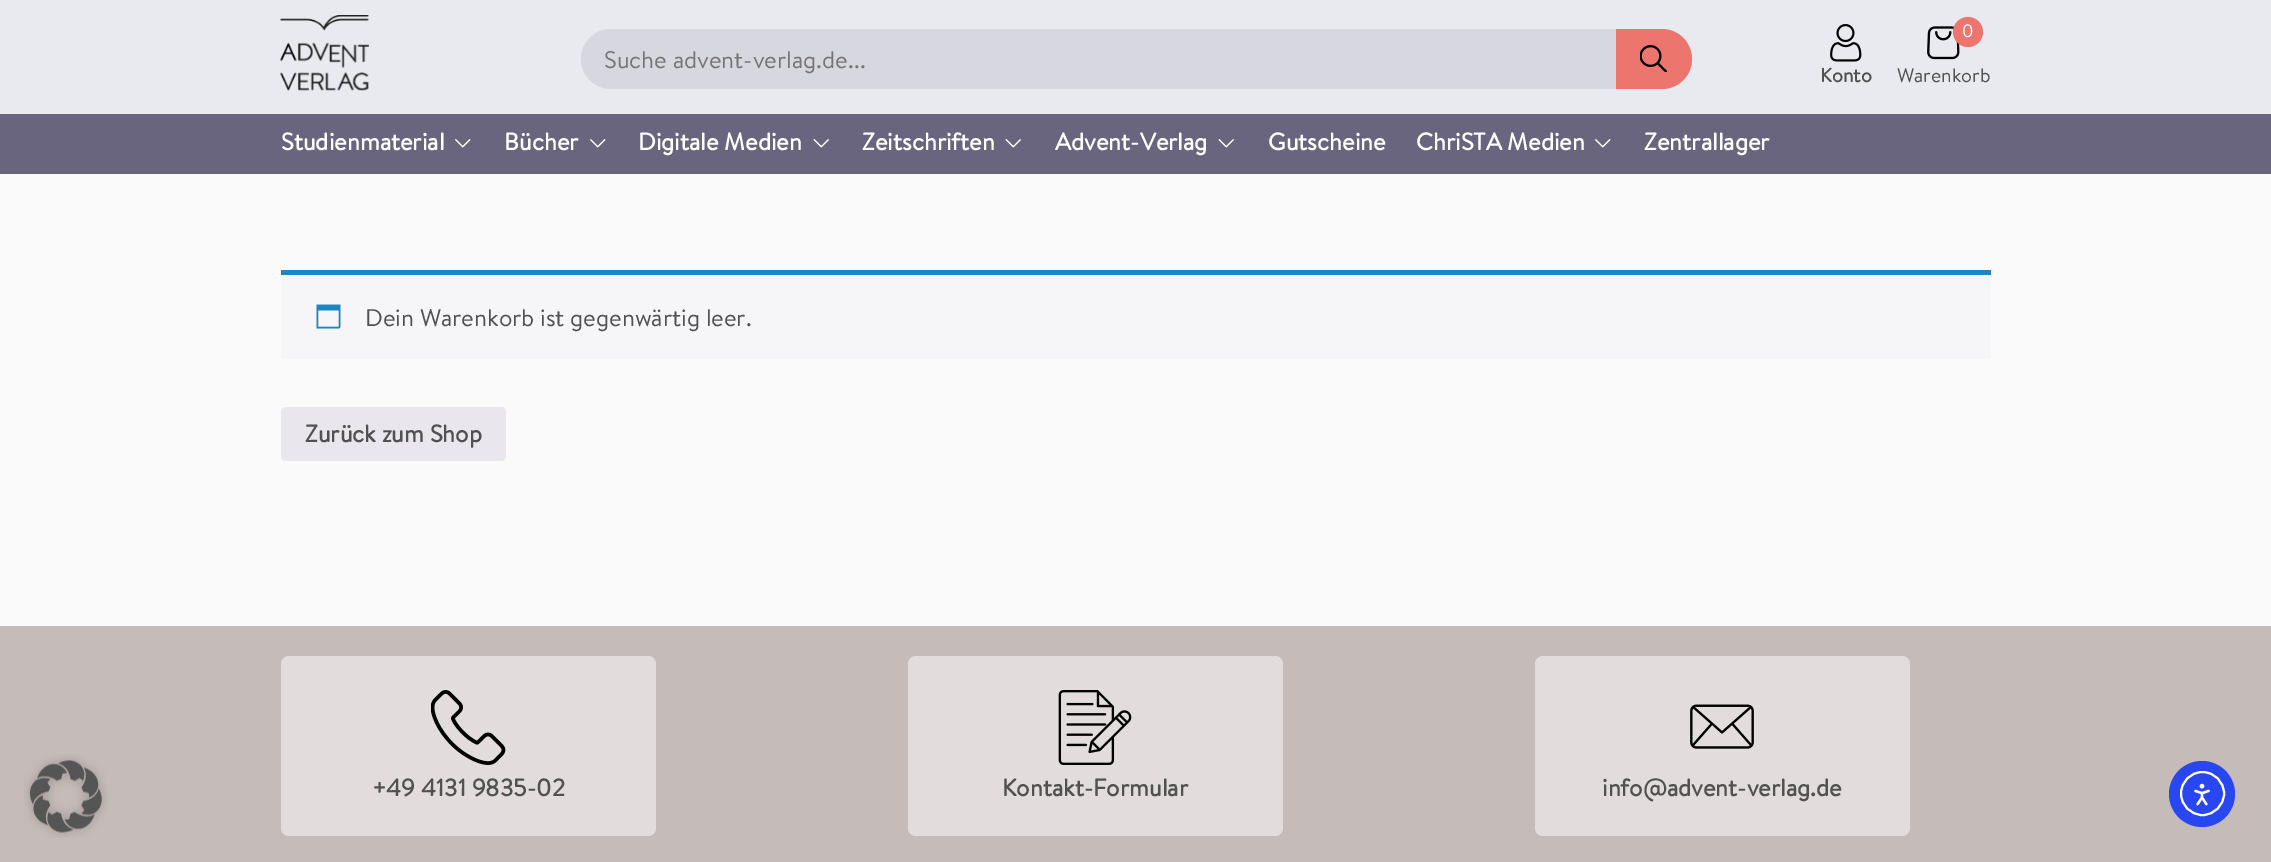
%!PS
<< /PageSize [2271 862] >> setpagedevice
/rgb { dup -16 bitshift 255 div exch dup -8 bitshift 255 and 255 div exch 255 and 255 div setrgbcolor } def
/font { [ exch dup neg 0 0 3 -1 roll 0 0 ] selectfont } def
/text { moveto show } def
/circle { newpath 0 360 arc closepath } def
/roundrect { 5 dict begin { /r /h /w /y /x } { exch def } forall
  x r add y moveto x w add y 2 copy h add r arct x w add y h add x 1 index r arct
  x y h add x y r arct x y 2 copy exch w add exch r arct closepath end } def
/picture { 5 dict begin { /h /w /y /x /name } { exch def } forall
  gsave x y translate w h scale
  w h 8 [w 0 0 h 0 0] name (r) file false 3 colorimage grestore end } def
0 862 translate 1 -1 scale
4 setmiterlimit
/s1 { /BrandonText-Regular 24 font 16#757575 rgb } def
/s2 { /BrandonText-Bold 19.5 font 16#515151 rgb } def
/s3 { /BrandonText-Regular 18 font 16#FFFFFF rgb } def
/s4 { /BrandonText-Regular 19.5 font 16#515151 rgb } def
/s5 { /BrandonText-Bold 24 font 16#FFFFFF rgb } def
/s6 { /BrandonText-Regular 24 font 16#515151 rgb } def
/s7 { /BrandonText-Bold 24 font 16#515151 rgb } def
16#FAFAFB rgb
0 0 2271 862 rectfill
16#E9EAEF rgb
0 0 2271 114 rectfill
(pic1.raw) 280 15 89 76 picture
16#D7D7DF rgb
611 29 moveto 1616 29 lineto 1616 89 lineto 611 89 lineto 594.5 89 581 75.5 581 59 curveto 581 42.5 594.5 29 611 29 curveto closepath fill
s1
(Suche advent-verlag.de...) 604 68 text
16#EC766D rgb
1616 29 moveto 1662 29 lineto 1678.5 29 1692 42.5 1692 59 curveto 1692 75.5 1678.5 89 1662 89 curveto 1616 89 lineto closepath fill
(pic2.raw) 1640 45 27 27 picture
(pic3.raw) 1830 24 32 38 picture
s2
(Konto) 1820 82 text
(pic4.raw) 1927 26 33 34 picture
16#EC766D rgb
1968 32 15 circle fill
s3
(0) 1962 37 text
s4
(Warenkorb) 1897 82 text
16#6A657E rgb
0 114 2271 60 rectfill
s5
(Studienmaterial) 281 150 text
(pic5.raw) 455 139 16 9 picture
(Bücher) 504 150 text
(pic5.raw) 590 139 16 9 picture
(Digitale Medien) 638 150 text
(pic6.raw) 813 139 16 9 picture
(Zeitschriften) 862 150 text
(pic6.raw) 1005 139 16 9 picture
(Advent-Verlag) 1055 150 text
(pic6.raw) 1218 139 16 9 picture
(Gutscheine) 1268 150 text
(ChriSTA Medien) 1416 150 text
(pic5.raw) 1595 139 16 9 picture
(Zentrallager) 1644 150 text
16#F6F5F8 rgb
281 275 1710 84 rectfill
16#1E85BE rgb
281 270 1710 5 rectfill
(pic7.raw) 316 304 25 25 picture
s6
(Dein Warenkorb ist gegenwärtig leer.) 365 326 text
16#E9E6ED rgb
281 407 225 54 5 roundrect fill
s7
(Zurück zum Shop) 305 442 text
16#C5BBB9 rgb
0 626 2271 236 rectfill
(pic8.raw) 24 754 84 84 picture
16#E2DDDC rgb
281 656 375 180 8 roundrect fill
(pic9.raw) 431 690 75 75 picture
s7
(+49 4131 9835-02) 372 796 text
16#E2DDDC rgb
908 656 375 180 8 roundrect fill
(pic10.raw) 1058 690 74 75 picture
s7
(Kontakt-Formular) 1002 796 text
16#E2DDDC rgb
1535 656 375 180 8 roundrect fill
(pic11.raw) 1690 704 64 45 picture
s7
(info@advent-verlag.de) 1602 796 text
16#2847F3 rgb
2202 794 33 circle fill
16#FFFFFF rgb
2 setlinewidth
2202.5 793.5 21.5 circle stroke
(pic12.raw) 2194 783 16 23 picture
showpage
